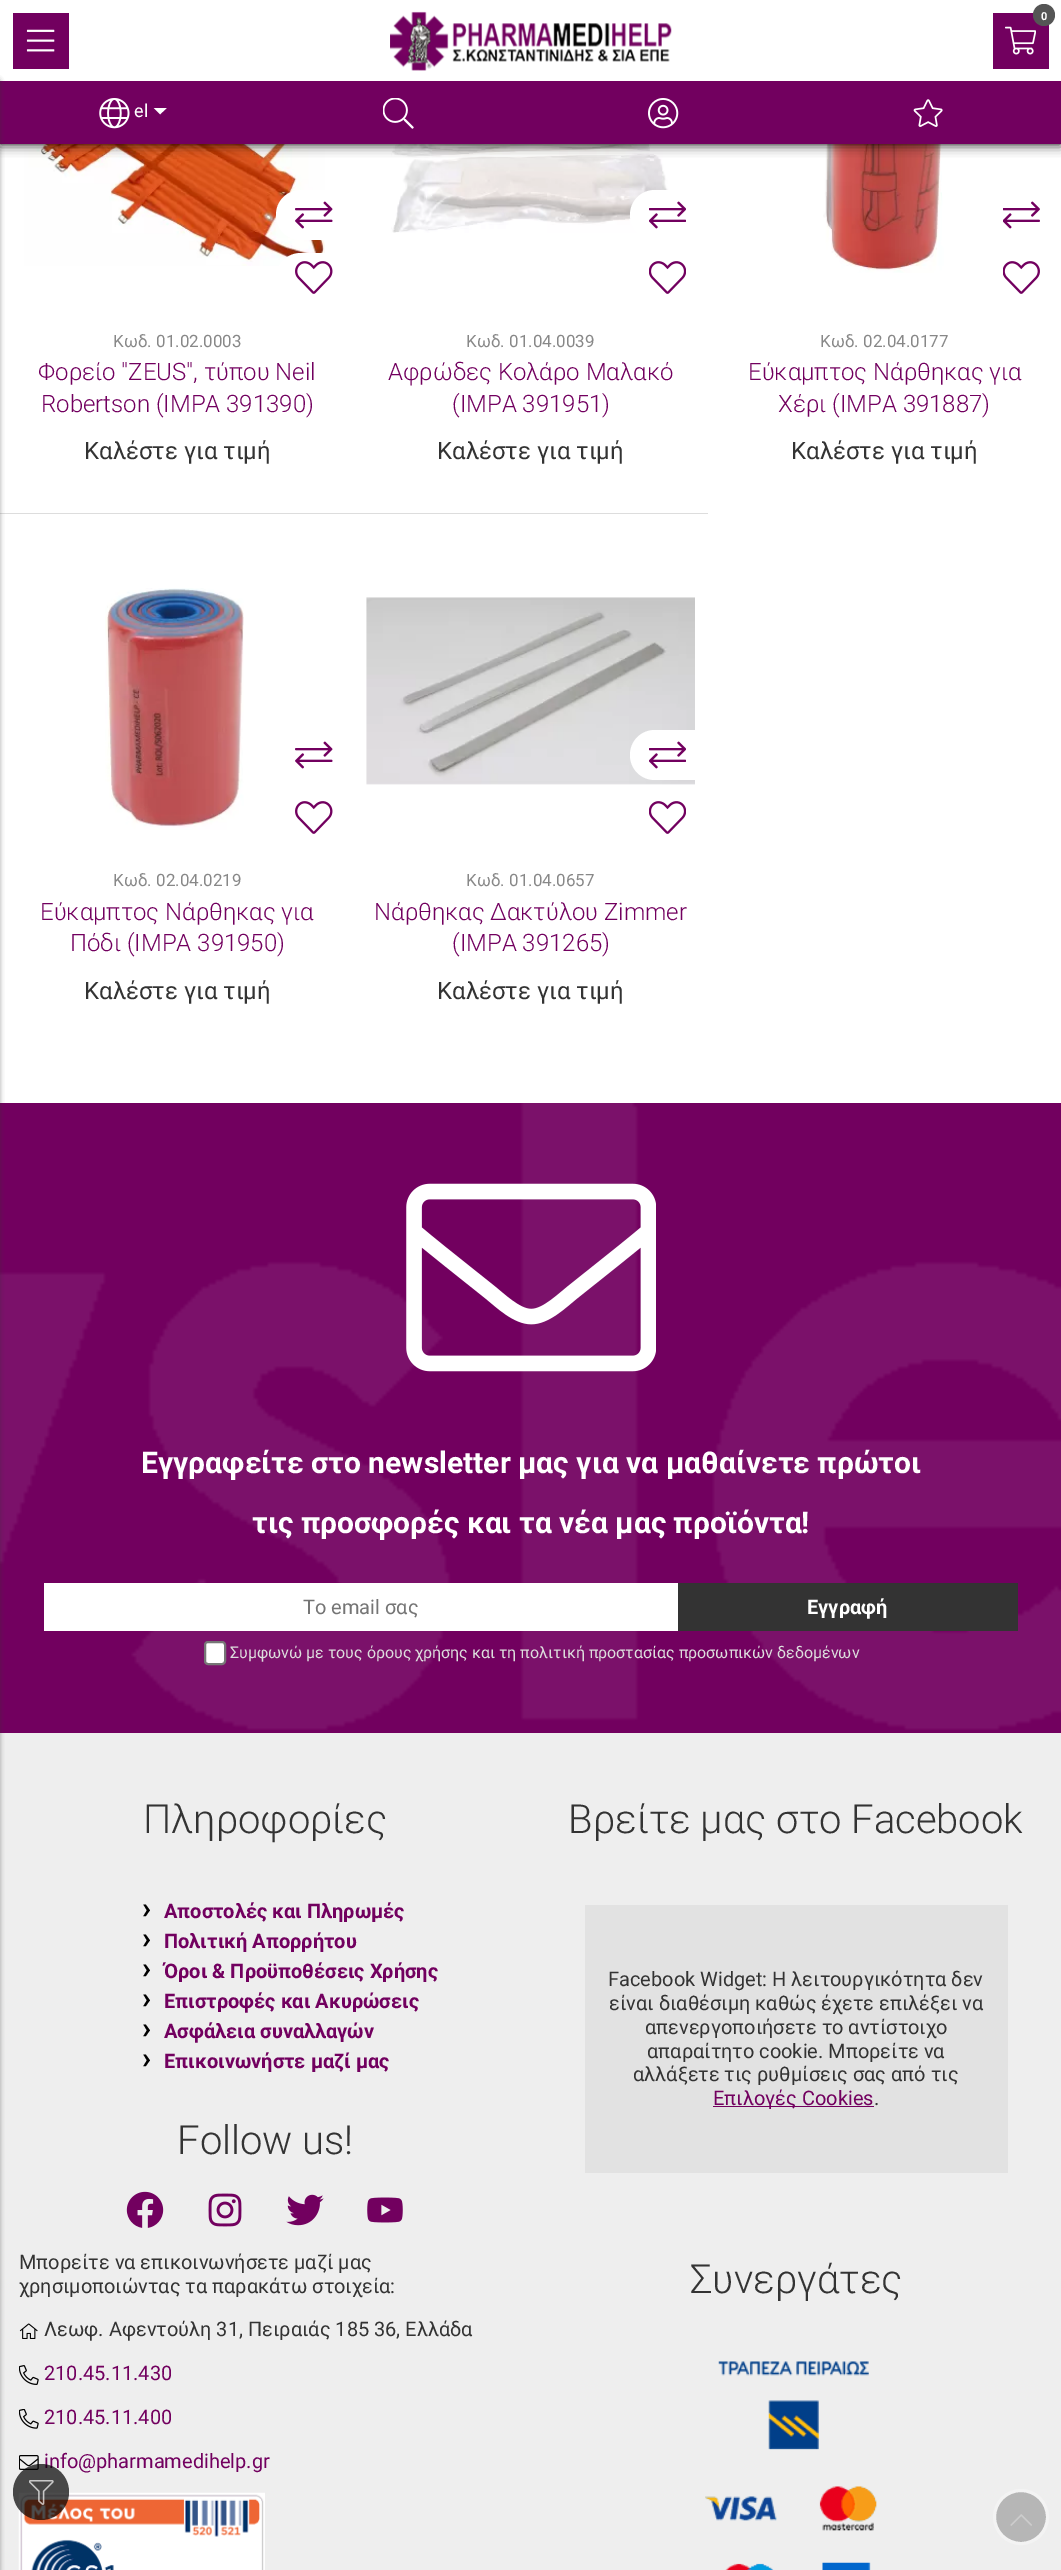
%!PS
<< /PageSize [1061 2570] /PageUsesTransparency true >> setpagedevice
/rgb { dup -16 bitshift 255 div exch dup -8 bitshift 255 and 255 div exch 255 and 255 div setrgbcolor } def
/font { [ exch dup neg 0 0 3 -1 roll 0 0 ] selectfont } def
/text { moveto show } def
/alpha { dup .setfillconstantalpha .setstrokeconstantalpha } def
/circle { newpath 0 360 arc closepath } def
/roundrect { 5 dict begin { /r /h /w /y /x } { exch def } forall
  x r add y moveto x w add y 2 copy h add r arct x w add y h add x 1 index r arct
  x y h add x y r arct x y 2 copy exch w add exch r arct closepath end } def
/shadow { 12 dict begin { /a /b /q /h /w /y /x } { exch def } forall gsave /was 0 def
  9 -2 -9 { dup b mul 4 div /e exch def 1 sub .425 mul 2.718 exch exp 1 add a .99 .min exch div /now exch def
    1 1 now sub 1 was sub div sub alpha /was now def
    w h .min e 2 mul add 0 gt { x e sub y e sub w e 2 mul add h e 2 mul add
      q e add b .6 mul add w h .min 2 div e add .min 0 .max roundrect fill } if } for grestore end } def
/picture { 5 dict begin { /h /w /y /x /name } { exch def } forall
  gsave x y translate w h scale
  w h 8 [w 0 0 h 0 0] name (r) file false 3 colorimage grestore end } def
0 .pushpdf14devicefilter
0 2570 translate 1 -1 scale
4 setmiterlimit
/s1 { /Roboto-Bold 11 font 16#FFFFFF rgb } def
/s2 { /Roboto-Regular 18 font 16#FFFFFF rgb } def
/s3 { /FreeSans-Regular 18 font 16#FFFFFF rgb } def
/s4 { /Roboto-Regular 17 font 16#888888 rgb } def
/s5 { /Roboto-Light 24 font 16#72005F rgb } def
/s6 { /Roboto-Regular 24 font 16#333333 rgb } def
/s7 { /Roboto-Regular 20 font 16#72005F rgb } def
/s8 { /Roboto-Bold 30 font 16#FFFFFF rgb } def
/s9 { /Roboto-Regular 20 font 16#757575 rgb } def
/s10 { /Roboto-Bold 20 font 16#FFFFFF rgb } def
/s11 { /Roboto-Regular 16 font 16#DDDDDD rgb } def
/s12 { /Roboto-Light 40 font 16#333333 rgb } def
/s13 { /Roboto-Bold 30 font 16#000000 rgb } def
/s14 { /Roboto-Bold 20 font 16#72005F rgb } def
/s15 { /Roboto-Regular 20 font 16#333333 rgb } def
16#FFFFFF rgb
0 0 1061 2570 rectfill
(pic8.raw) 24 144 301 122 picture
(pic11.raw) 391 144 292 89 picture
(pic14.raw) 823 144 123 129 picture
16#000000 rgb
0 0 1061 144 0 6 1 shadow
16#FFFFFF rgb
0 0 1061 81 rectfill
16#72005F rgb
13 13 56 56 rectfill
(pic1.raw) 26 29 29 23 picture
(pic2.raw) 390 11 282 60 picture
993 13 56 56 rectfill
16#555555 rgb
1044 15 11 circle fill
s1
(0) 1041 20 text
(pic3.raw) 1005 26 31 29 picture
16#72005F rgb
0 81 1061 63 rectfill
16#DDDDDD rgb
0 513 708 1 rectfill
16#72005F rgb
0 1103 1061 630 rectfill
(pic20.raw) 0 1103 1061 627 picture
16#EEEEEE rgb
0 1733 1061 837 rectfill
16#333333 rgb
-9 81 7 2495 0 3 1 shadow
(pic4.raw) 99 98 31 31 picture
s2
(el) 134 117 text
s3
(⏷) 153 117 text
(pic5.raw) 383 98 31 31 picture
(pic6.raw) 648 98 31 31 picture
(pic7.raw) 913 99 30 28 picture
301 190 moveto 341 190 lineto 341 240 lineto 301 240 lineto 287 240 276 229 276 215 curveto 276 201 287 190 301 190 curveto closepath fill
(pic9.raw) 295 201 38 28 picture
301 253 moveto 341 253 lineto 341 303 lineto 301 303 lineto 287 303 276 292 276 278 curveto 276 264 287 253 301 253 curveto closepath fill
(pic10.raw) 295 261 38 33 picture
s4
(Κωδ. 01.02.0003) 113 347 text
s5
(Φορείο "ZEUS", τύπου Neil) 38 380 text
(Robertson \(IMPA 391390\)) 41 412 text
s6
(Καλέστε για τιμή) 84 459 text
16#FFFFFF rgb
655 190 moveto 695 190 lineto 695 240 lineto 655 240 lineto 641 240 630 229 630 215 curveto 630 201 641 190 655 190 curveto closepath fill
(pic12.raw) 649 201 37 28 picture
(pic13.raw) 649 261 37 33 picture
s4
(Κωδ. 01.04.0039) 466 347 text
s5
(Αφρώδες Κολάρο Μαλακό) 388 380 text
(\(IMPA 391951\)) 452 412 text
s6
(Καλέστε για τιμή) 437 459 text
(pic15.raw) 1003 201 37 28 picture
(pic16.raw) 1003 261 37 33 picture
s4
(Κωδ. 02.04.0177) 820 347 text
s5
(Εύκαμπτος Νάρθηκας για) 748 380 text
(Χέρι \(IMPA 391887\)) 778 412 text
s6
(Καλέστε για τιμή) 791 459 text
(pic17.raw) 105 588 139 242 picture
(pic9.raw) 295 741 38 28 picture
(pic10.raw) 295 801 38 33 picture
s4
(Κωδ. 02.04.0219) 113 886 text
s5
(Εύκαμπτος Νάρθηκας για) 40 920 text
(Πόδι \(IMPA 391950\)) 70 951 text
s6
(Καλέστε για τιμή) 84 999 text
(pic18.raw) 366 597 329 188 picture
16#FFFFFF rgb
655 730 moveto 695 730 lineto 695 780 lineto 655 780 lineto 641 780 630 769 630 755 curveto 630 741 641 730 655 730 curveto closepath fill
(pic12.raw) 649 741 37 28 picture
(pic13.raw) 649 801 37 33 picture
s4
(Κωδ. 01.04.0657) 466 886 text
s5
(Νάρθηκας Δακτύλου Zimmer) 374 920 text
(\(IMPA 391265\)) 452 951 text
s6
(Καλέστε για τιμή) 437 999 text
(pic29.raw) 19 2455 20 15 picture
s7
(info@pharmamedihelp.gr) 44 2468 text
(pic30.raw) 18 2492 247 78 picture
0.7 alpha
16#000000 rgb
41 2492 28 circle fill
1 alpha
(pic19.raw) 29 2480 25 25 picture
(pic21.raw) 406 1183 250 189 picture
s8
(Εγγραφείτε στο newsletter μας για να μαθαίνετε πρώτοι) 141 1473 text
(τις προσφορές και τα νέα μας προϊόντα!) 252 1533 text
44 1583 634 48 rectfill
s9
(Το email σας) 303 1614 text
16#333333 rgb
678 1583 340 48 rectfill
s10
(Εγγραφή) 807 1614 text
205 1642 20 22 3 roundrect gsave fill grestore
16#767676 rgb
2 setlinewidth
stroke
s11
(Συμφωνώ με τους όρους χρήσης και τη πολιτική προστασίας προσωπικών δεδομένων) 230 1658 text
s12
(Πληροφορίες) 143 1833 text
s13
(›) 142 1918 text
s14
(Αποστολές και Πληρωμές) 164 1918 text
s13
(›) 142 1948 text
s14
(Πολιτική Απορρήτου) 164 1948 text
s13
(›) 142 1978 text
s14
(Όροι & Προϋποθέσεις Χρήσης) 164 1978 text
s13
(›) 142 2008 text
s14
(Επιστροφές και Ακυρώσεις) 164 2008 text
s13
(›) 142 2038 text
s14
(Ασφάλεια συναλλαγών) 164 2038 text
s13
(›) 142 2068 text
s14
(Επικοινωνήστε μαζί μας) 164 2068 text
s12
(Follow us!) 177 2154 text
(pic22.raw) 126 2191 38 37 picture
(pic23.raw) 208 2193 34 34 picture
(pic24.raw) 286 2194 38 32 picture
(pic25.raw) 367 2197 36 26 picture
(Βρείτε μας στο Facebook) 568 1833 text
16#E2E2E2 rgb
585 1905 423 268 rectfill
s15
(Facebook Widget: Η λειτουργικότητα δεν) 608 1986 text
(είναι διαθέσιμη καθώς έχετε επιλέξει να) 609 2010 text
(απενεργοποιήσετε το αντίστοιχο) 645 2034 text
(απαραίτητο cookie. Μπορείτε να) 647 2058 text
(αλλάξετε τις ρυθμίσεις σας από τις) 633 2081 text
16#72005F rgb
713 2106 161 1 rectfill
(Επιλογές Cookies) 713 2105 text
s15
(.) 874 2105 text
(Μπορείτε να επικοινωνήσετε μαζί μας) 19 2269 text
(χρησιμοποιώντας τα παρακάτω στοιχεία:) 19 2293 text
(pic26.raw) 19 2323 19 16 picture
(Λεωφ. Αφεντούλη 31, Πειραιάς 185 36, Ελλάδα) 44 2336 text
(pic27.raw) 19 2365 20 20 picture
s7
(210.45.11.430) 44 2380 text
(pic28.raw) 19 2409 20 20 picture
(210.45.11.400) 44 2424 text
s12
(Συνεργάτες) 690 2293 text
(pic31.raw) 718 2361 151 89 picture
(pic32.raw) 705 2496 72 25 picture
(pic33.raw) 819 2486 58 45 picture
(pic34.raw) 725 2563 49 7 picture
(pic35.raw) 822 2562 49 8 picture
16#B6B6B6 rgb
1021 2517 26.5 circle gsave fill grestore
16#F3F3F3 rgb
3 setlinewidth
stroke
(pic36.raw) 1010 2514 22 12 picture
.poppdf14devicefilter showpage
